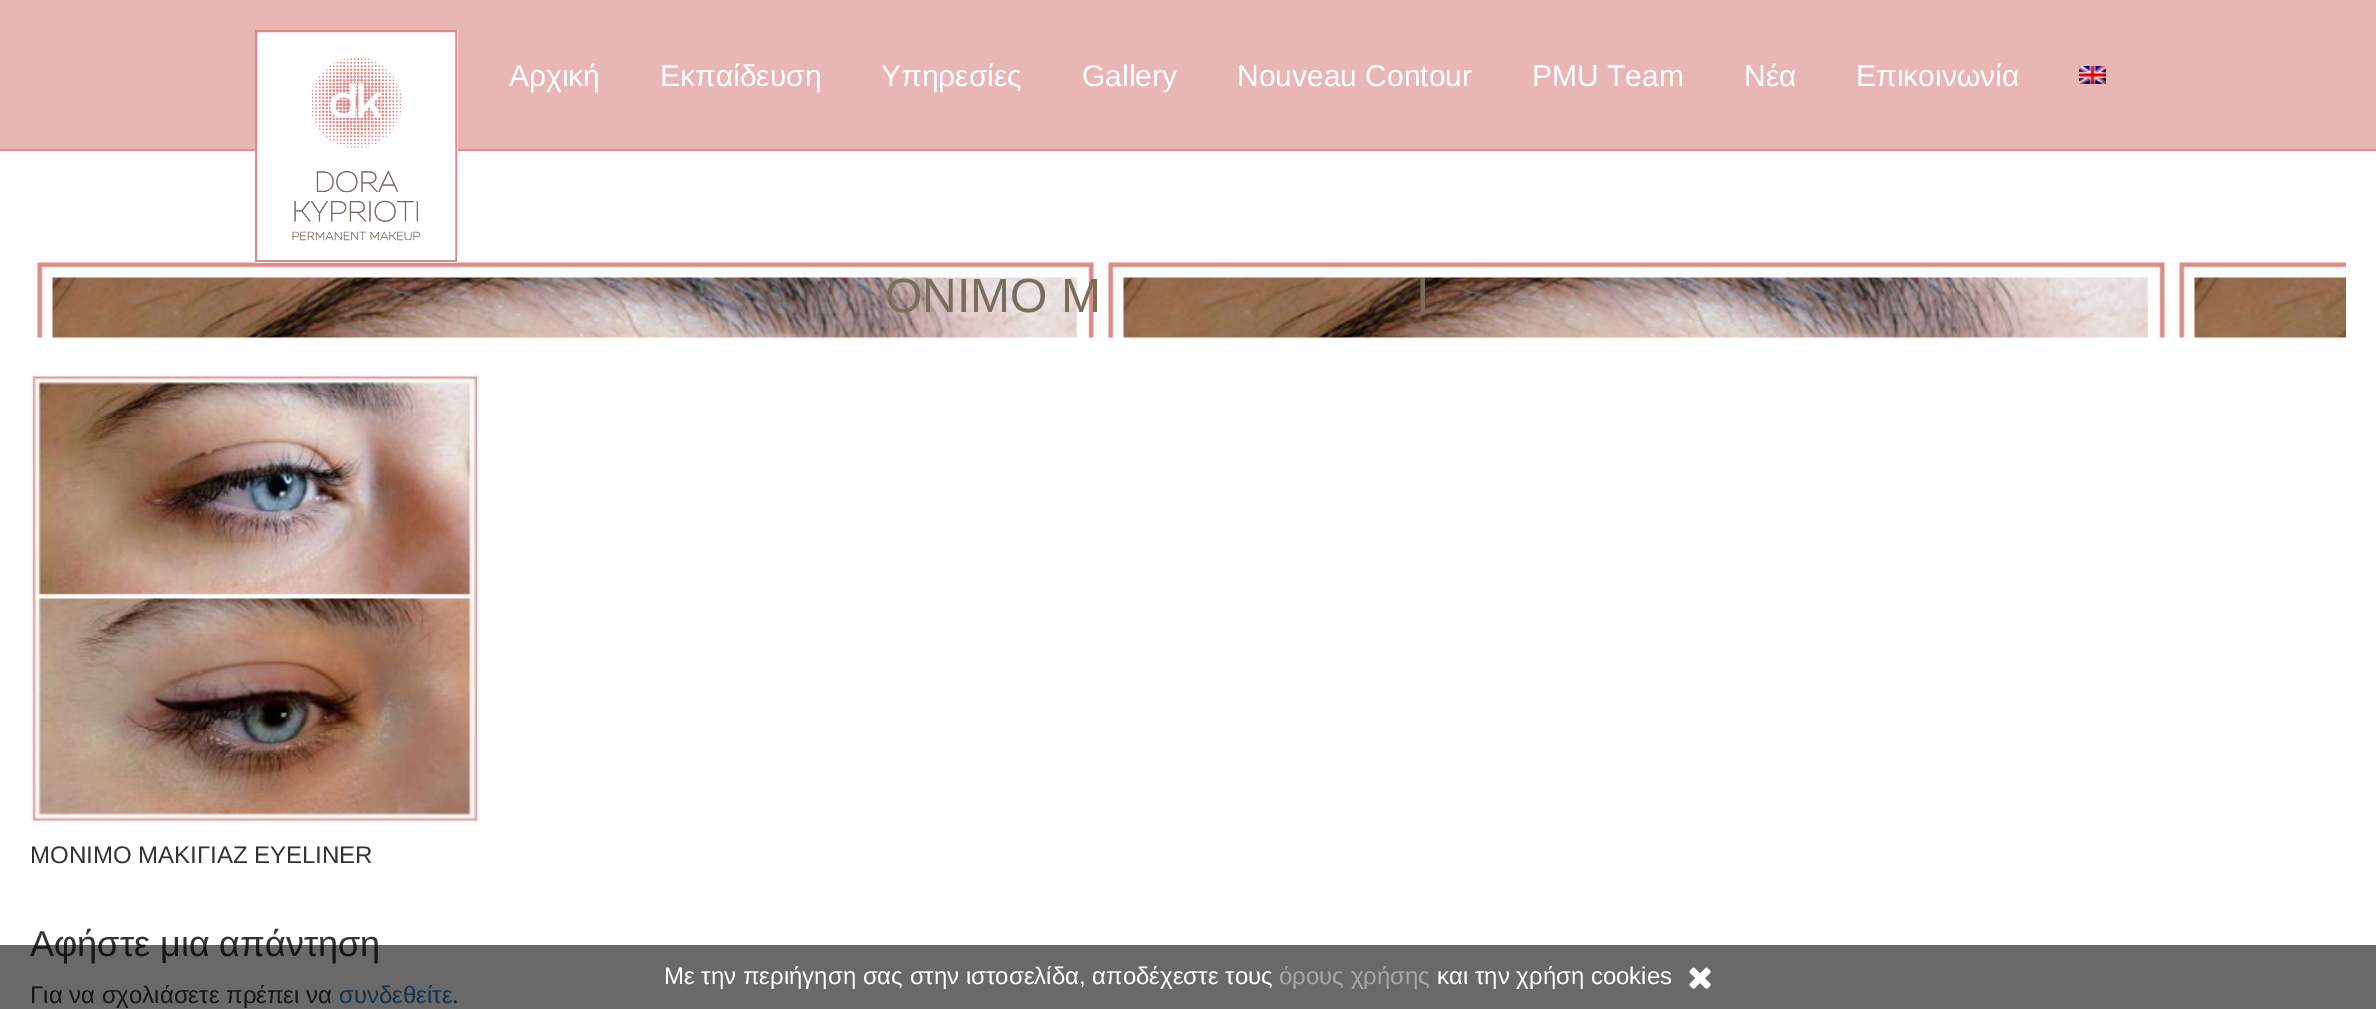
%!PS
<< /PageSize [2376 1009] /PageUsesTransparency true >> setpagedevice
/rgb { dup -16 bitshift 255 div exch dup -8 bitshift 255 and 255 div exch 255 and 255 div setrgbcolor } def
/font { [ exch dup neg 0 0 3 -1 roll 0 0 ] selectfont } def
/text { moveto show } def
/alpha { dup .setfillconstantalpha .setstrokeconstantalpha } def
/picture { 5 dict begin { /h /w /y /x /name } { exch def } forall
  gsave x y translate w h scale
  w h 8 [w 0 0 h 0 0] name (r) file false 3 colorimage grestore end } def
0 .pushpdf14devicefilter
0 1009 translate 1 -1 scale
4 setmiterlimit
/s1 { /LiberationSans-Regular 30 font 16#FFFFFF rgb } def
/s2 { /LiberationSans-Regular 48 font 16#7A6D5E rgb } def
/s3 { /LiberationSans-Regular 24 font 16#333333 rgb } def
/s4 { /LiberationSans-Regular 36 font 16#333333 rgb } def
/s5 { /LiberationSans-Regular 24 font 16#337AB7 rgb } def
/s6 { /LiberationSans-Regular 24 font 16#FFFFFF rgb } def
/s7 { /LiberationSans-Regular 24 font 16#A7A7A7 rgb } def
16#FFFFFF rgb
0 0 2376 1009 rectfill
16#E9B6B6 rgb
0 0 2376 149 rectfill
16#DD8E8E rgb
0 149 2376 2 rectfill
(pic3.raw) 33 255 2313 83 picture
16#FFFFFF rgb
255 30 203 233 rectfill
(pic1.raw) 255 30 203 233 picture
s1
(Αρχική) 509 86 text
(Εκπαίδευση) 660 86 text
(Υπηρεσίες) 881 86 text
(Gallery) 1082 86 text
(Nouveau Contour) 1237 86 text
(PMU Team) 1532 86 text
(Νέα) 1744 86 text
(Επικοινωνία) 1856 86 text
(pic2.raw) 2079 66 27 18 picture
s2
(ΟΝΙΜΟ Μ) 885 312 text
(I) 1416 312 text
(pic4.raw) 30 373 450 451 picture
s3
(ΜΟΝΙΜΟ ΜΑΚΙΓΙΑΖ EYELINER) 30 863 text
s4
(Αφήστε μια απάντηση) 30 956 text
s3
(Για να σχολιάσετε πρέπει να) 30 1003 text
s5
(συνδεθείτε) 339 1003 text
s3
(.) 452 1003 text
0.59 alpha
16#000000 rgb
0 945 2376 64 rectfill
1 alpha
s6
(Με την περιήγηση σας στην ιστοσελίδα, αποδέχεστε τους) 664 984 text
s7
(όρους χρήσης) 1279 984 text
s6
(και την χρήση cookies) 1437 984 text
(pic5.raw) 1689 967 22 22 picture
.poppdf14devicefilter showpage
